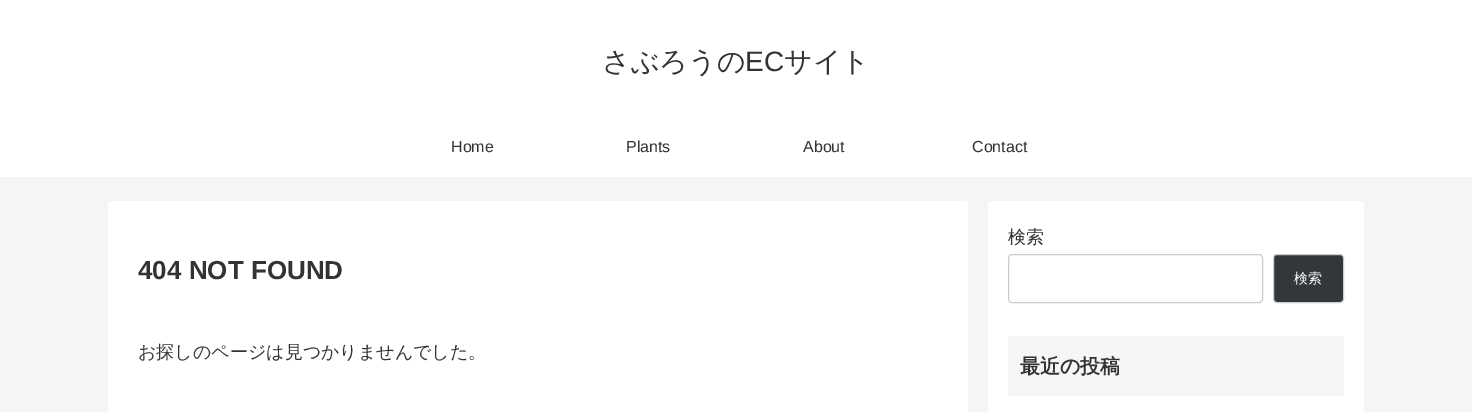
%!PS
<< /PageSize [1472 412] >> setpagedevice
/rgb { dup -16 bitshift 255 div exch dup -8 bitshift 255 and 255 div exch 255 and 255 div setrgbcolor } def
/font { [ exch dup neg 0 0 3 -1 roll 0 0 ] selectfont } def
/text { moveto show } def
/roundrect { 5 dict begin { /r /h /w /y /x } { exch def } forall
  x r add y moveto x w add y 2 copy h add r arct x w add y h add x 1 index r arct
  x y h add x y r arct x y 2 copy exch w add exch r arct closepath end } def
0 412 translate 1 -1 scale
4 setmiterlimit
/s1 { /WenQuanYiZenHei-Medium 28 font 16#333333 rgb } def
/s2 { /LiberationSans-Regular 28 font 16#333333 rgb } def
/s3 { /LiberationSans-Regular 16 font 16#333333 rgb } def
/s4 { /LiberationSans-Bold 26 font 16#333333 rgb } def
/s5 { /WenQuanYiZenHei-Medium 18 font 16#333333 rgb } def
/s6 { /WenQuanYiZenHei-Medium 14 font 16#FFFFFF rgb } def
/s7 { /WenQuanYiZenHei-Bold 20 font 16#333333 rgb } def
16#F4F5F7 rgb
0 0 1472 412 rectfill
16#FFFFFF rgb
0 0 1472 177 rectfill
s1
(さぶろうの) 602 71 text
s2
(EC) 745 71 text
s1
(サイト) 784 71 text
s3
(Home) 451 152 text
(Plants) 626 152 text
(About) 803 152 text
(Contact) 972 152 text
16#FFFFFF rgb
108 201 860 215 4 roundrect fill
s4
(404 NOT FOUND) 138 279 text
s5
(お探しのページは見つかりませんでした。) 138 358 text
16#FFFFFF rgb
988 201 376 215 4 roundrect fill
s5
(検索) 1008 243 text
16#CCCCCC rgb
1008.5 254.5 254 48 3.5 roundrect stroke
16#32373C rgb
1273.5 254.5 70 48 3.5 roundrect gsave fill grestore
16#CCCCCC rgb
stroke
s6
(検索) 1294 283 text
16#F5F6F7 rgb
1008 336 336 60 2 roundrect fill
s7
(最近の投稿) 1020 373 text
showpage
